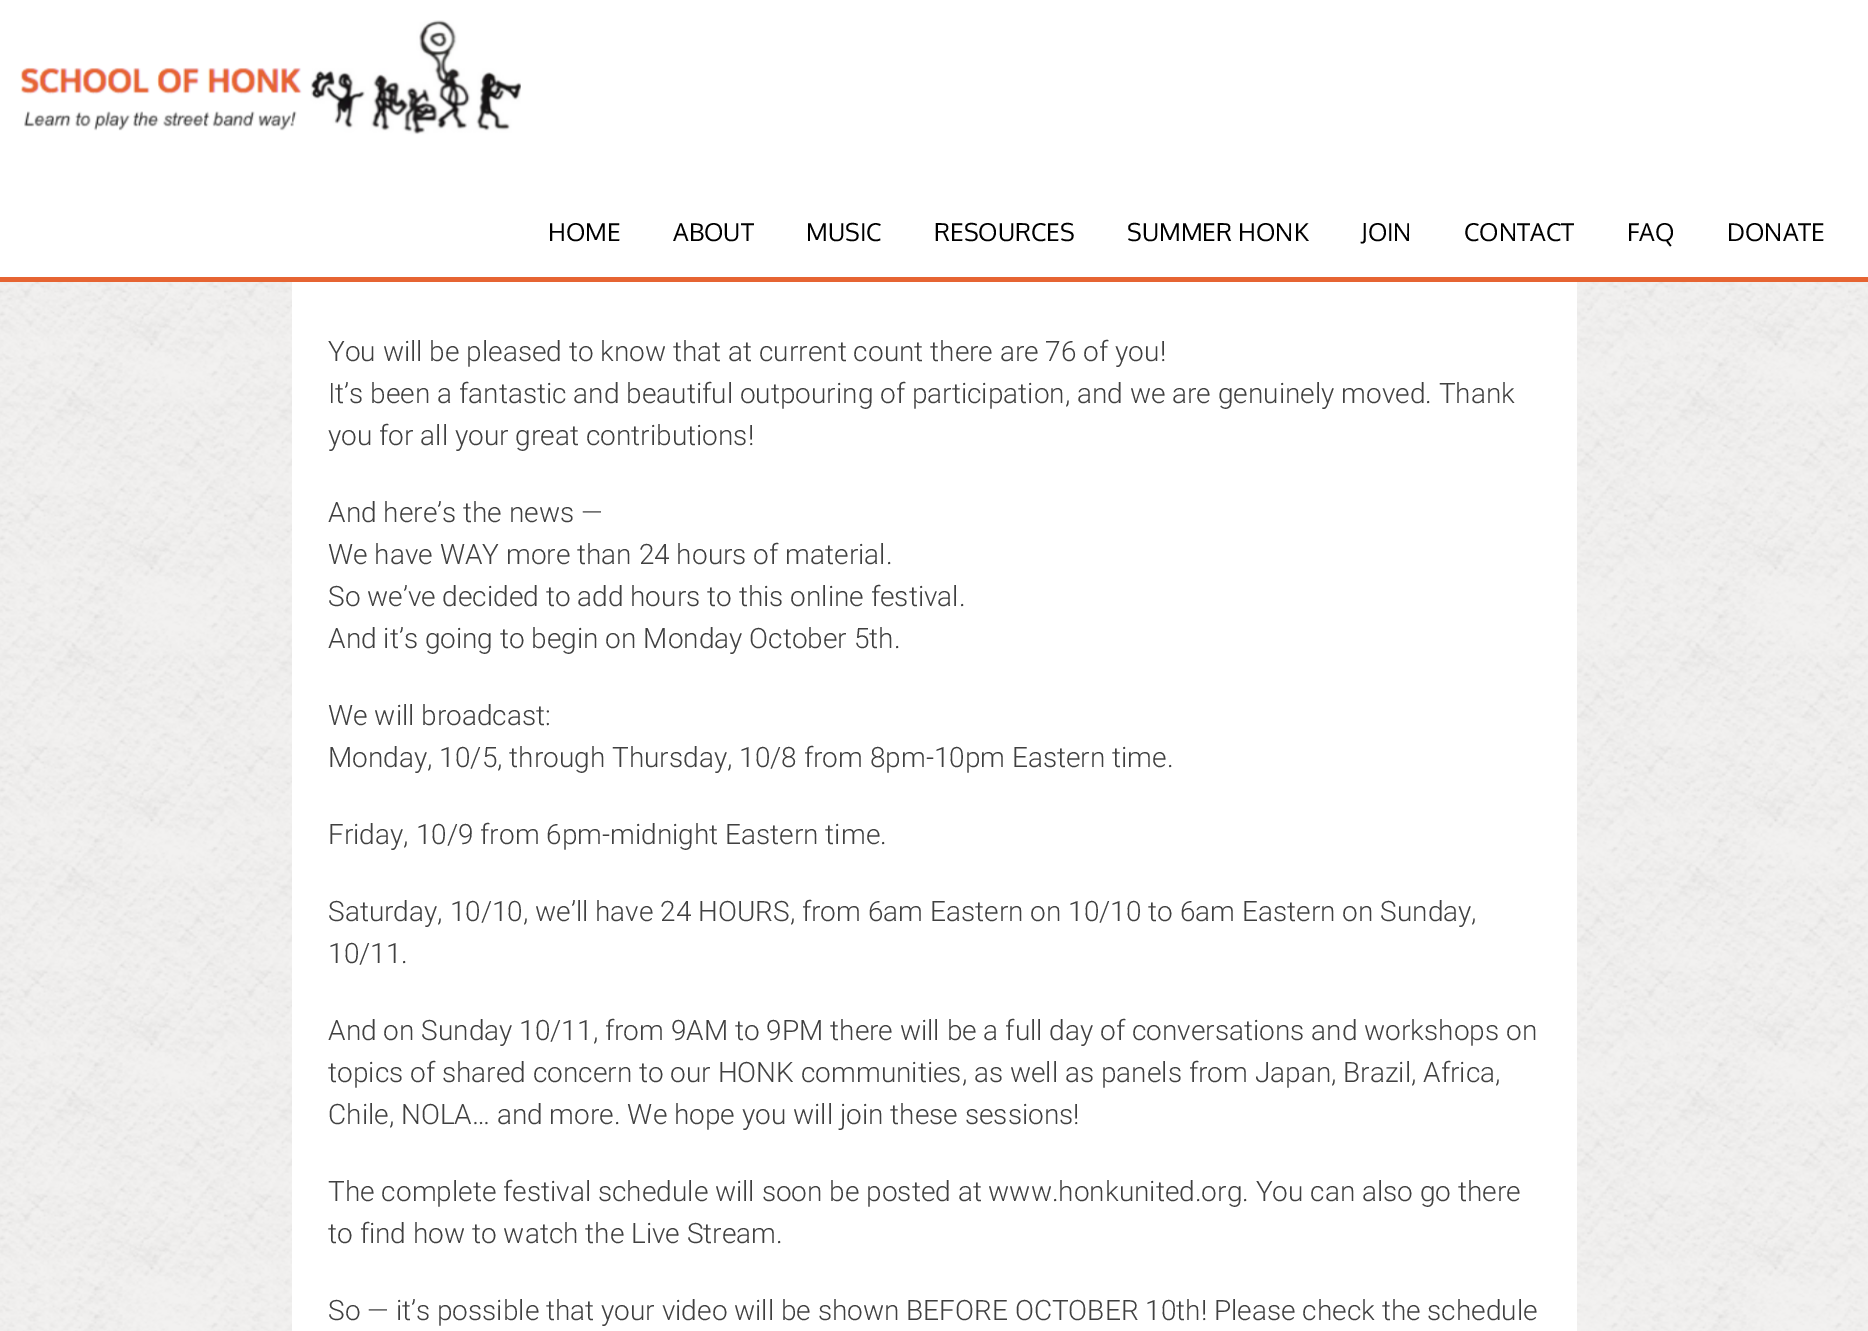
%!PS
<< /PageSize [1868 1331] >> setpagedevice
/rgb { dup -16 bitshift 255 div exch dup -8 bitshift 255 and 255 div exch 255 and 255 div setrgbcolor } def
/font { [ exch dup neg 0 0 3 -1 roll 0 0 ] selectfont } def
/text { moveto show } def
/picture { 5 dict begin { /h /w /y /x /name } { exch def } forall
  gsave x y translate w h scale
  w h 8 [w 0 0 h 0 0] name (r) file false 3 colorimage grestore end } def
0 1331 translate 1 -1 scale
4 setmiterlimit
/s1 { /Oxygen-Regular 24.5 font 16#000000 rgb } def
/s2 { /Roboto-Light 28 font 16#404040 rgb } def
16#FFFFFF rgb
0 0 1868 1331 rectfill
(pic1.raw) 0 282 1868 1049 picture
16#E66432 rgb
0 277 1868 5 rectfill
(pic2.raw) 20 20 501 115 picture
s1
(HOME) 548 241 text
(ABOUT) 673 241 text
(MUSIC) 806 241 text
(RESOURCES) 934 241 text
(SUMMER HONK) 1127 241 text
(JOIN) 1361 241 text
(CONTACT) 1464 241 text
(FAQ) 1627 241 text
(DONATE) 1727 241 text
16#FFFFFF rgb
292 282 1285 1049 rectfill
s2
(You will be pleased to know that at current count there are 76 of you!) 328 361 text
(It’s been a fantastic and beautiful outpouring of participation, and we are genuinely moved. Thank) 328 403 text
(you for all your great contributions!) 328 445 text
(And here’s the news —) 328 522 text
(We have WAY more than 24 hours of material.) 328 564 text
(So we’ve decided to add hours to this online festival.) 328 606 text
(And it’s going to begin on Monday October 5th.) 328 648 text
(We will broadcast:) 328 725 text
(Monday, 10/5, through Thursday, 10/8 from 8pm-10pm Eastern time.) 328 767 text
(Friday, 10/9 from 6pm-midnight Eastern time.) 328 844 text
(Saturday, 10/10, we’ll have 24 HOURS, from 6am Eastern on 10/10 to 6am Eastern on Sunday,) 328 921 text
(10/11.) 328 963 text
(And on Sunday 10/11, from 9AM to 9PM there will be a full day of conversations and workshops on) 328 1040 text
(topics of shared concern to our HONK communities, as well as panels from Japan, Brazil, Africa,) 328 1082 text
(Chile, NOLA… and more. We hope you will join these sessions!) 328 1124 text
(The complete festival schedule will soon be posted at www.honkunited.org. You can also go there) 328 1201 text
(to find how to watch the Live Stream.) 328 1243 text
(So — it’s possible that your video will be shown BEFORE OCTOBER 10th! Please check the schedule) 328 1320 text
showpage
